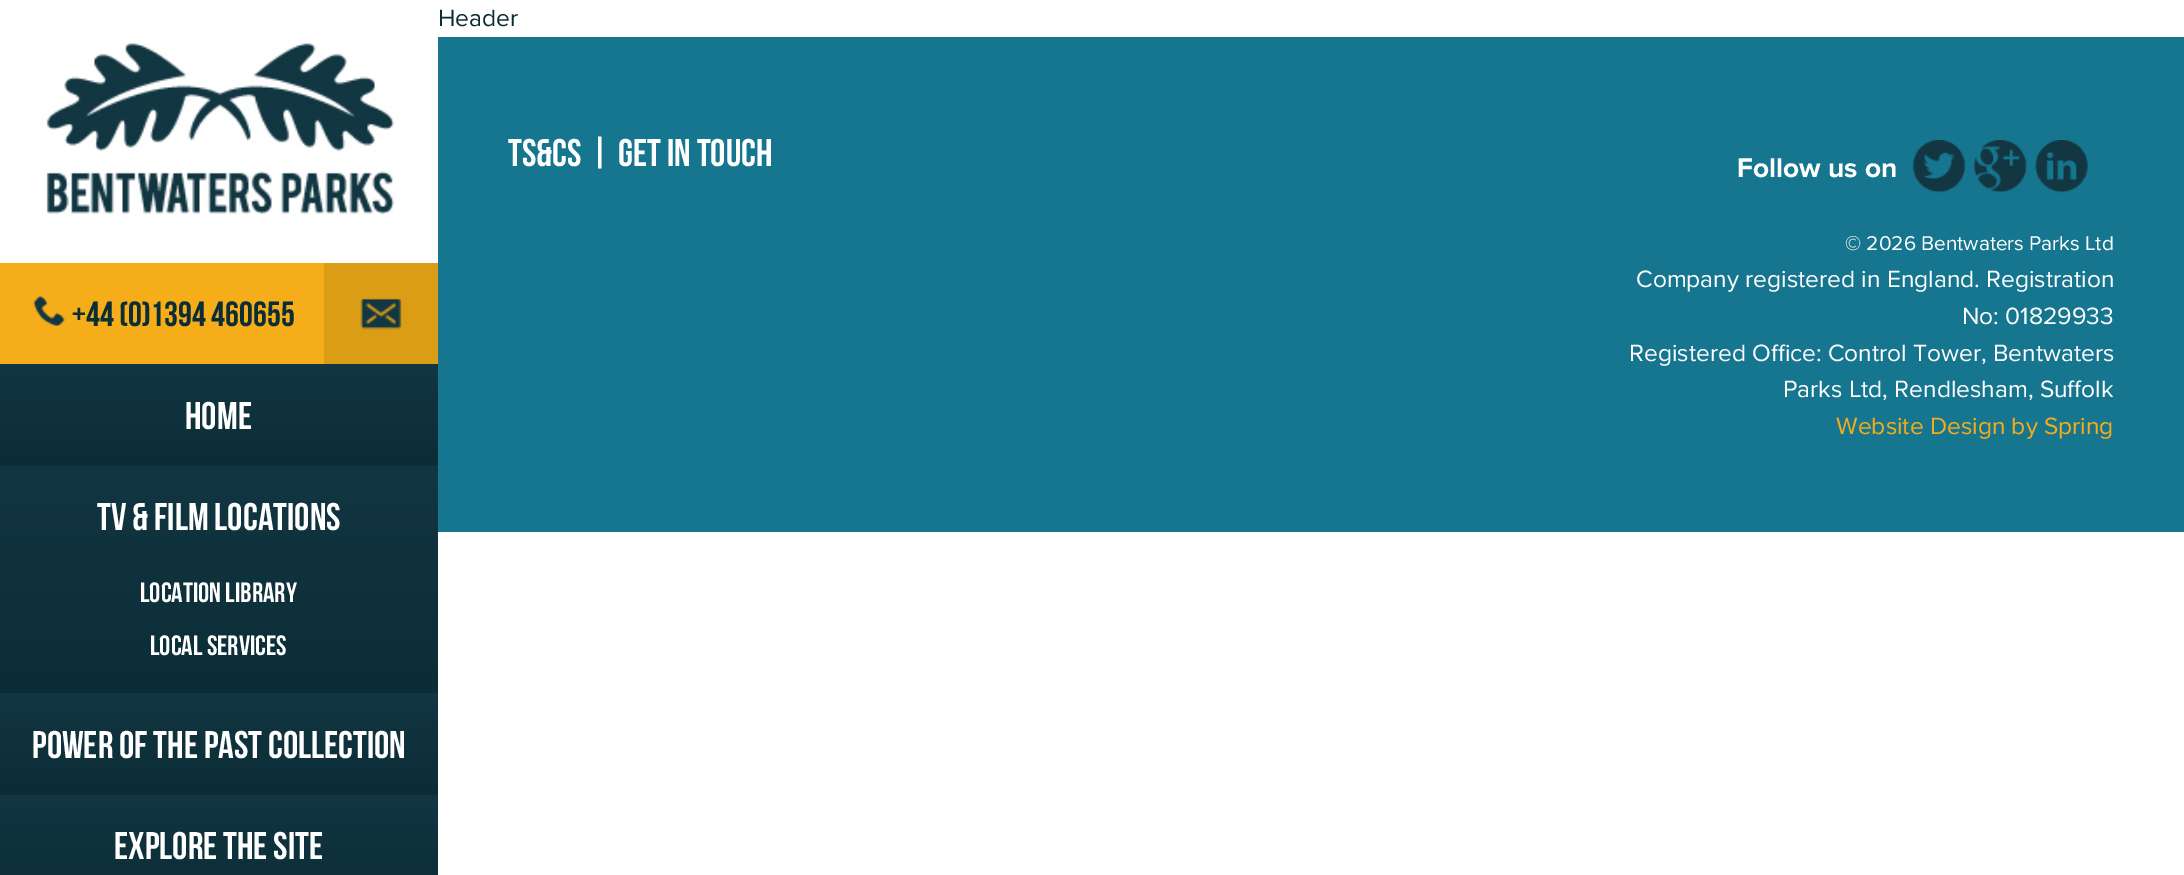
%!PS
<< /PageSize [2184 875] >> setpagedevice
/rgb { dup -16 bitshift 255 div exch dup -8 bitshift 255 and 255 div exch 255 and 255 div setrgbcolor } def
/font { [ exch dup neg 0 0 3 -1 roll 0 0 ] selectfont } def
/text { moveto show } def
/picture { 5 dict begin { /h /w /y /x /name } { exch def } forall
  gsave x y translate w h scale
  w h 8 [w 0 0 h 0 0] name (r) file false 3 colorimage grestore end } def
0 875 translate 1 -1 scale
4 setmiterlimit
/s1 { /ProximaNova-Regular 24.5 font 16#0B2D36 rgb } def
/s2 { /BebasNeue-Regular 35 font 16#0B2D36 rgb } def
/s3 { /BebasNeue-Regular 38.5 font 16#FFFFFF rgb } def
/s4 { /BebasNeue-Regular 28 font 16#FFFFFF rgb } def
/s5 { /ProximaNova-Bold 28 font 16#FFFFFF rgb } def
/s6 { /ProximaNova-Regular 20.75 font 16#FFFFFF rgb } def
/s7 { /ProximaNova-Regular 24.5 font 16#FFFFFF rgb } def
/s8 { /ProximaNova-Regular 24.5 font 16#F5AD1A rgb } def
16#FFFFFF rgb
0 0 2184 875 rectfill
s1
(Header) 438 26 text
(pic1.raw) 46 43 349 171 picture
16#F5AD1A rgb
0 263 324 101 rectfill
(pic2.raw) 33 295 32 31 picture
s2
(+44 \(0\)1394 460655) 72 326 text
16#DB9D16 rgb
324 263 114 101 rectfill
(pic3.raw) 360 298 42 32 picture
gsave 0 364 moveto 438 364 lineto 438 466 lineto 0 466 lineto closepath clip newpath
<< /ShadingType 2 /ColorSpace /DeviceRGB /Coords [0 466 0 364] /Extend [true true] /Function << /FunctionType 2 /Domain [0 1] /C0 [0.043 0.176 0.212] /C1 [0.071 0.212 0.259] /N 1 >> >> shfill grestore
s3
(Home) 185 429 text
gsave 0 466 moveto 438 466 lineto 438 693 lineto 0 693 lineto closepath clip newpath
<< /ShadingType 2 /ColorSpace /DeviceRGB /Coords [0 693 0 466] /Extend [true true] /Function << /FunctionType 2 /Domain [0 1] /C0 [0.043 0.176 0.212] /C1 [0.071 0.212 0.259] /N 1 >> >> shfill grestore
(TV & Film Locations) 97 530 text
s4
(Location Library) 140 602 text
(Local Services) 150 655 text
gsave 0 693 moveto 438 693 lineto 438 795 lineto 0 795 lineto closepath clip newpath
<< /ShadingType 2 /ColorSpace /DeviceRGB /Coords [0 795 0 693] /Extend [true true] /Function << /FunctionType 2 /Domain [0 1] /C0 [0.043 0.176 0.212] /C1 [0.071 0.212 0.259] /N 1 >> >> shfill grestore
s3
(Power of The Past Collection) 32 758 text
gsave 0 795 moveto 438 795 lineto 438 875 lineto 0 875 lineto closepath clip newpath
<< /ShadingType 2 /ColorSpace /DeviceRGB /Coords [0 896 0 795] /Extend [true true] /Function << /FunctionType 2 /Domain [0 1] /C0 [0.043 0.176 0.212] /C1 [0.071 0.212 0.259] /N 1 >> >> shfill grestore
(Explore the Site) 114 859 text
16#16768F rgb
438 37 1746 495 rectfill
s3
(TS&CS) 508 166 text
(|) 590 166 text
(Get in touch) 618 166 text
s5
(Follow us on) 1737 177 text
(pic4.raw) 1912 140 54 53 picture
(pic5.raw) 1974 140 53 53 picture
(pic6.raw) 2035 140 53 53 picture
s6
(© 2026 Bentwaters Parks Ltd) 1845 250 text
s7
(Company registered in England. Registration) 1636 287 text
(No: 01829933) 1962 324 text
(Registered Office: Control Tower, Bentwaters) 1629 361 text
(Parks Ltd, Rendlesham, Suffolk) 1783 397 text
s8
(Website Design by Spring) 1836 434 text
showpage
